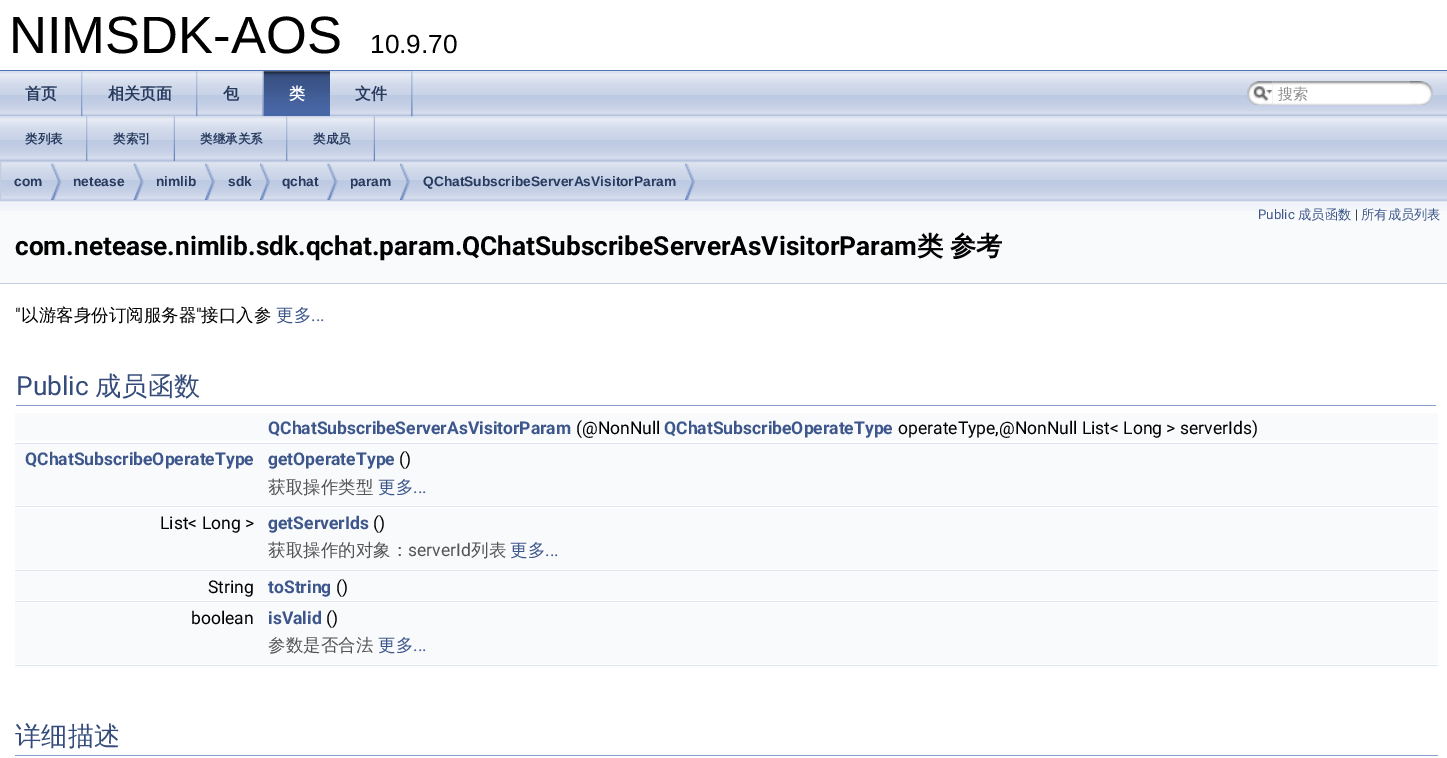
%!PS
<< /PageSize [1447 758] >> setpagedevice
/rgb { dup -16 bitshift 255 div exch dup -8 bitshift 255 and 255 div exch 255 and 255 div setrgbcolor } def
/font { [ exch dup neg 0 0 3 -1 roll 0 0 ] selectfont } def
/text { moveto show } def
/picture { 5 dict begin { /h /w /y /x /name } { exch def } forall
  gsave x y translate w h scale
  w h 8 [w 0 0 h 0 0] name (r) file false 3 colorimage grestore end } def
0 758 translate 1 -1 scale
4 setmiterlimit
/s1 { /LiberationSans-Regular 52.5 font 16#000000 rgb } def
/s2 { /LiberationSans-Regular 26.25 font 16#000000 rgb } def
/s3 { /WenQuanYiZenHei-Bold 16 font 16#283A5D rgb } def
/s4 { /WenQuanYiZenHei-Bold 16 font 16#FFFFFF rgb } def
/s5 { /WenQuanYiZenHei-Medium 15 font 16#909090 rgb } def
/s6 { /WenQuanYiZenHei-Bold 12.5 font 16#283A5D rgb } def
/s7 { /LiberationSans-Bold 13.75 font 16#283A5D rgb } def
/s8 { /Roboto-Regular 13.25 font 16#3D578C rgb } def
/s9 { /WenQuanYiZenHei-Medium 13.25 font 16#3D578C rgb } def
/s10 { /Roboto-Regular 13.25 font 16#000000 rgb } def
/s11 { /Roboto-Bold 26.25 font 16#000000 rgb } def
/s12 { /Roboto-Regular 17.5 font 16#000000 rgb } def
/s13 { /WenQuanYiZenHei-Medium 17.5 font 16#000000 rgb } def
/s14 { /WenQuanYiZenHei-Medium 17.5 font 16#3D578C rgb } def
/s15 { /Roboto-Regular 17.5 font 16#3D578C rgb } def
/s16 { /Roboto-Regular 26.25 font 16#354C7B rgb } def
/s17 { /WenQuanYiZenHei-Medium 26.25 font 16#354C7B rgb } def
/s18 { /Roboto-Bold 17.5 font 16#3D578C rgb } def
/s19 { /WenQuanYiZenHei-Medium 17.5 font 16#555555 rgb } def
/s20 { /Roboto-Regular 17.5 font 16#555555 rgb } def
16#FFFFFF rgb
0 0 1447 758 rectfill
16#5373B4 rgb
0 70 1447 1 rectfill
s1
(NIMSDK-AOS) 9 53 text
s2
(10.9.70) 370 53 text
(pic1.raw) 0 71 1447 46 picture
(pic13.raw) 0 116 1447 45 picture
(pic2.raw) 0 71 83 46 picture
(pic3.raw) 81 71 2 46 picture
s3
(首页) 25 99 text
(pic4.raw) 82 71 116 46 picture
(pic3.raw) 196 71 2 46 picture
(相关页面) 108 99 text
(pic5.raw) 197 71 67 46 picture
(pic6.raw) 262 71 2 46 picture
(包) 223 99 text
(pic7.raw) 263 71 67 46 picture
(pic8.raw) 263 71 67 46 picture
s4
(类) 289 99 text
(pic2.raw) 330 71 83 46 picture
(pic3.raw) 411 71 2 46 picture
s3
(文件) 355 99 text
(pic9.raw) 1247 81 26 24 picture
(pic10.raw) 1253 86 20 16 picture
(pic11.raw) 1272 81 147 24 picture
gsave
1278 84 138 21 rectclip
s5
(搜索) 1278 99 text
grestore
(pic12.raw) 1410 81 23 24 picture
(pic14.raw) 0 116 88 45 picture
(pic15.raw) 86 116 2 45 picture
s6
(类列表) 25 143 text
(pic16.raw) 87 116 88 45 picture
(pic17.raw) 173 116 2 45 picture
(类索引) 113 143 text
(pic18.raw) 175 116 113 45 picture
(pic19.raw) 286 116 2 45 picture
(类继承关系) 200 143 text
(pic20.raw) 287 116 88 45 picture
(pic17.raw) 373 116 2 45 picture
(类成员) 313 143 text
16#F9FAFC rgb
0 201 1447 82 rectfill
(pic27.raw) 0 201 1447 10 picture
(pic21.raw) 0 162 1447 40 picture
16#C2CDE4 rgb
0.5 161.5 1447 39 rectstroke
(pic22.raw) 51 163 11 37 picture
s7
(com) 14 186 text
(pic23.raw) 133 163 11 37 picture
(netease) 73 186 text
(pic24.raw) 205 163 10 37 picture
(nimlib) 156 186 text
(pic24.raw) 260 163 10 37 picture
(sdk) 228 186 text
(pic25.raw) 327 163 11 37 picture
(qchat) 282 186 text
(pic24.raw) 400 163 10 37 picture
(param) 350 186 text
(pic26.raw) 685 163 10 37 picture
(QChatSubscribeServerAsVisitorParam) 423 186 text
16#C4CFE5 rgb
0 283 1447 1 rectfill
s8
(Public) 1258 219 text
s9
(成员函数) 1298 219 text
s10
(|) 1355 219 text
s9
(所有成员列表) 1361 219 text
s11
(com.netease.nimlib.sdk.qchat.param.QChatSubscribeServerAsVisitorParam) 15 255 text
/WenQuanYiZenHei-Bold 26.25 font
917 255 moveto -1 0 32 (类 参考) widthshow
s12
(") 15 321 text
s13
(以游客身份订阅服务器) 21 321 text
s12
(") 196 321 text
s13
(接口入参) 201 321 text
s14
(更多) 276 321 text
s15
(...) 311 321 text
16#879ECB rgb
16 405 1420 1 rectfill
s16
(Public) 16 395 text
s17
(成员函数) 95 395 text
16#F9FAFC rgb
15 413 1423 28 rectfill
s18
(QChatSubscribeServerAsVisitorParam) 268 434 text
s12
(\(@NonNull) 576 434 text
s18
(QChatSubscribeOperateType) 664 434 text
s12
(operateType,@NonNull List< Long > serverIds\)) 898 434 text
16#DEE4F0 rgb
15 443 1423 1 rectfill
16#F9FAFC rgb
15 444 1423 29 rectfill
s18
(QChatSubscribeOperateType) 25 465 text
(getOperateType) 268 465 text
s12
(\(\)) 399 465 text
16#F9FAFC rgb
15 473 1423 32 rectfill
s19
(获取操作类型) 268 493 text
s14
(更多) 378 493 text
s15
(...) 413 493 text
16#DEE4F0 rgb
15 506 1423 1 rectfill
16#F9FAFC rgb
15 508 1423 28 rectfill
s12
(List< Long >) 160 529 text
s18
(getServerIds) 268 529 text
s12
(\(\)) 373 529 text
16#F9FAFC rgb
15 536 1423 33 rectfill
s19
(获取操作的对象：) 268 556 text
s20
(serverId) 408 556 text
s19
(列表) 471 556 text
s14
(更多) 510 556 text
s15
(...) 545 556 text
16#DEE4F0 rgb
15 570 1423 1 rectfill
16#F9FAFC rgb
15 571 1423 29 rectfill
s12
(String) 208 593 text
s18
(toString) 268 593 text
s12
(\(\)) 336 593 text
16#DEE4F0 rgb
15 601 1423 1 rectfill
16#F9FAFC rgb
15 603 1423 28 rectfill
s12
(boolean) 191 624 text
s18
(isValid) 268 624 text
s12
(\(\)) 326 624 text
16#F9FAFC rgb
15 631 1423 33 rectfill
s19
(参数是否合法) 268 651 text
s14
(更多) 378 651 text
s15
(...) 413 651 text
16#DEE4F0 rgb
15 665 1423 1 rectfill
16#879ECB rgb
15 755 1423 1 rectfill
s17
(详细描述) 15 745 text
showpage
